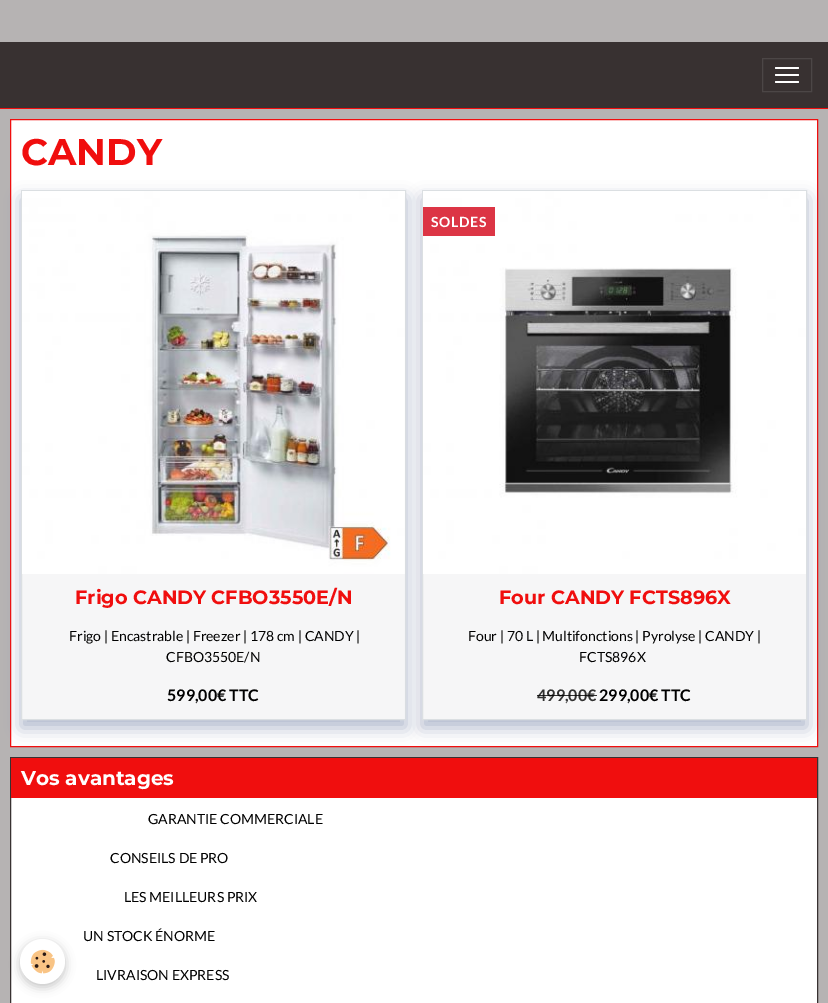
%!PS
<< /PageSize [828 1003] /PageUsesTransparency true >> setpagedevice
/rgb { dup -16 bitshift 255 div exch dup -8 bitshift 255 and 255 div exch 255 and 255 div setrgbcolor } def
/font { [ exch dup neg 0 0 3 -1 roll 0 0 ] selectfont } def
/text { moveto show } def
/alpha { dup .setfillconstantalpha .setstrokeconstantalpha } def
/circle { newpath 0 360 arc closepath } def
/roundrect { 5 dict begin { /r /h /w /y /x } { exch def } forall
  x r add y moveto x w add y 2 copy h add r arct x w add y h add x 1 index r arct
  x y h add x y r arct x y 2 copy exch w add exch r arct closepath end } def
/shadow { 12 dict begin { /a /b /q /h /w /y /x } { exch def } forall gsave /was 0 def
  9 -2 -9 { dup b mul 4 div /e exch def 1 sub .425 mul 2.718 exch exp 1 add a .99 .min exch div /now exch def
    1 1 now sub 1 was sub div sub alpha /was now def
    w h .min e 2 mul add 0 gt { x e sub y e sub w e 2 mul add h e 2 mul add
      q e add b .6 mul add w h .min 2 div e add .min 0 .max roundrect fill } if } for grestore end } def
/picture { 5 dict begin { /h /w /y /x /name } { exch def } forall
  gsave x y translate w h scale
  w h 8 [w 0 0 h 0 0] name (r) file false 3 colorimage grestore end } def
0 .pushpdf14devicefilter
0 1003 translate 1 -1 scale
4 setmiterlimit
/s1 { /Montserrat-Bold 37 font 16#F00E0E rgb } def
/s2 { /Montserrat-Bold 19.25 font 16#F00E0E rgb } def
/s3 { /Lato-Regular 14 font 16#000000 rgb } def
/s4 { /Lato-Bold 16 font 16#000000 rgb } def
/s5 { /Lato-Bold 16 font 16#313131 rgb } def
/s6 { /Montserrat-Bold 20 font 16#FFFFFF rgb } def
16#B6B3B3 rgb
0 0 828 1003 rectfill
16#383131 rgb
0 42 828 66 rectfill
16#F00E0E rgb
0 108 828 1 rectfill
16#4C4646 rgb
762.5 58.5 49 33 rectstroke
16#FFFFFF rgb
775 67 24 2 1 roundrect fill
775 74 24 2 1 roundrect fill
775 81 24 2 1 roundrect fill
10.5 119.5 moveto 817.5 119.5 lineto 817.5 746.5 lineto 10.5 746.5 lineto closepath gsave fill grestore
16#F00E0E rgb
stroke
s1
(CANDY) 21 165 text
16#62759B rgb
21 198 385 530 0 8 0.5 shadow
16#F6F6F7 rgb
22 574 383 145 rectfill
16#DBDFE2 rgb
21.5 190.5 384 529 rectstroke
(pic1.raw) 22 191 383 383 picture
s2
(Frigo CANDY CFBO3550E/N) 75 604 text
s3
(Frigo | Encastrable | Freezer | 178 cm | CANDY |) 69 641 text
(CFBO3550E/N) 166 662 text
s4
(599,00€ TTC) 167 701 text
16#62759B rgb
422 198 385 530 0 8 0.5 shadow
16#F6F6F7 rgb
423 574 383 145 rectfill
16#DBDFE2 rgb
422.5 190.5 384 529 rectstroke
(pic2.raw) 423 191 383 383 picture
16#DC3545 rgb
423 207 72 29 rectfill
/Lato-Bold 14 font
16#FFFFFF rgb
431 227 moveto 0.75 0 (SOLDES) ashow
s2
(Four CANDY FCTS896X) 499 604 text
s3
(Four | 70 L | Multifonctions | Pyrolyse | CANDY |) 468 641 text
(FCTS896X) 579 662 text
s5
(499,00€) 537 701 text
0.8 alpha
16#000000 rgb
537 695 60 1 rectfill
1 alpha
(299,00€ TTC) 599 701 text
16#FFFFFF rgb
11 798 806 205 rectfill
16#383131 rgb
10.5 757.5 807 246 rectstroke
16#F00E0E rgb
11 758 806 40 rectfill
s6
(Vos avantages) 21 785 text
s3
(GARANTIE COMMERCIALE) 148 824 text
(CONSEILS DE PRO) 110 863 text
(LES MEILLEURS PRIX) 124 902 text
(UN STOCK ÉNORME) 83 941 text
(LIVRAISON EXPRESS) 96 980 text
20 942 45 45 22.5 5 0.24 shadow
16#FFFFFF rgb
42.5 961.5 22.5 circle fill
(pic3.raw) 30 949 25 25 picture
.poppdf14devicefilter showpage
